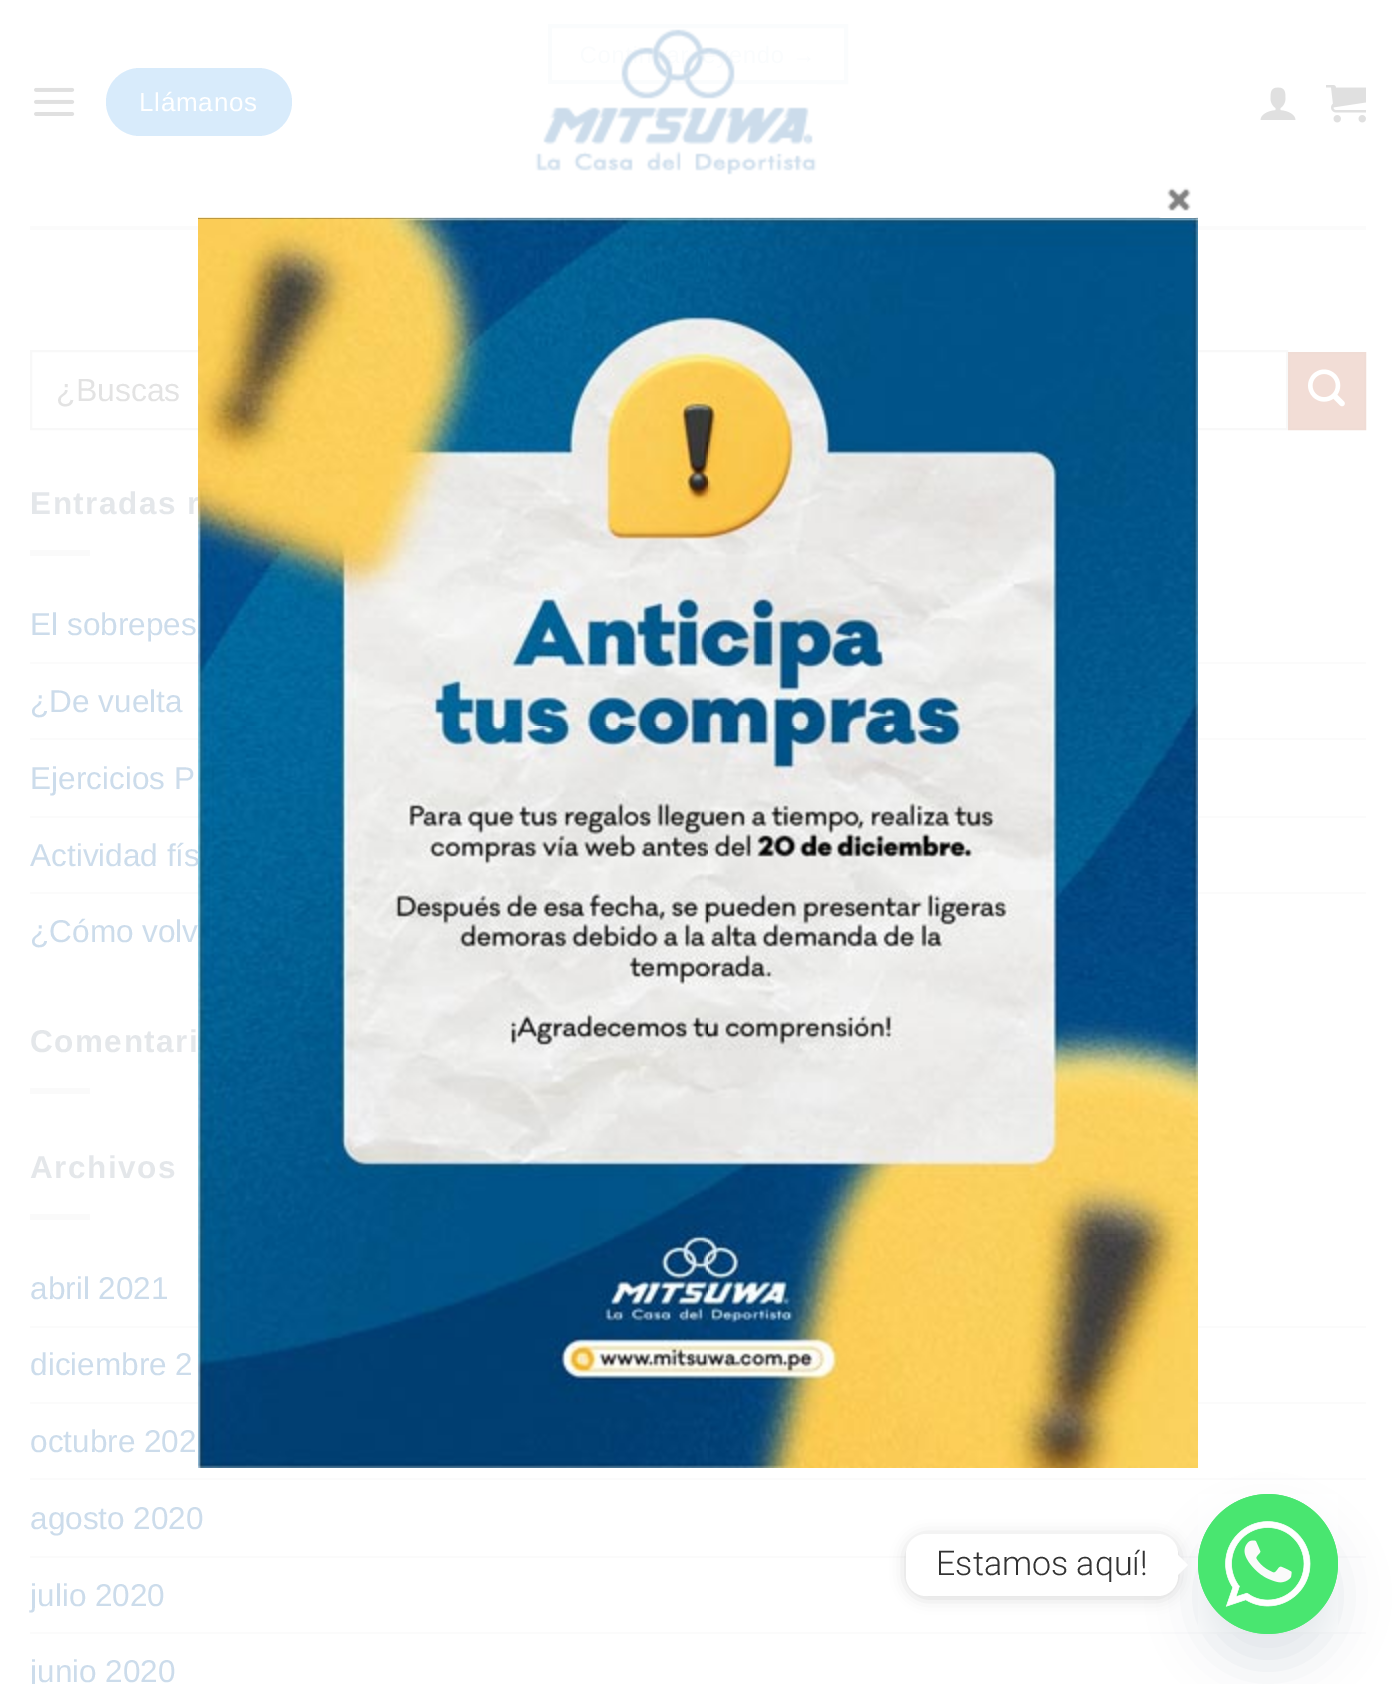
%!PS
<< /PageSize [1396 1684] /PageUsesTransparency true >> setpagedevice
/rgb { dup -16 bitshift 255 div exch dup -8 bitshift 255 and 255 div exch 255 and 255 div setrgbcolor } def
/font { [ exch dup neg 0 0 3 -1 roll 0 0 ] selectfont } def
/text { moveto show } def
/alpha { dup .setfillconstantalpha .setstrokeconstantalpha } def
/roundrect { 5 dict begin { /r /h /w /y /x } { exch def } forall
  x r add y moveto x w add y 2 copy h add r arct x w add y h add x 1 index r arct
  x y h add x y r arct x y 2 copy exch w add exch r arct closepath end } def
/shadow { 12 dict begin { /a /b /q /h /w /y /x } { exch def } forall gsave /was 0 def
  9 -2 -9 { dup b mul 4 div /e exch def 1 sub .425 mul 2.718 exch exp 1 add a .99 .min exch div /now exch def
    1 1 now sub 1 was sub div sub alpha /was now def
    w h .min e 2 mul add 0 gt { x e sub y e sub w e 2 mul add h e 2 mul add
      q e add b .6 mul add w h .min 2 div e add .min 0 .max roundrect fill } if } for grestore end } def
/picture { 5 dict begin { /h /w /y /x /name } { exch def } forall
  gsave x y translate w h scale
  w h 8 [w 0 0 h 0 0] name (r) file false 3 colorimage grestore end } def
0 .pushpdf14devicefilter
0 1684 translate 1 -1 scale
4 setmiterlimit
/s1 { /LiberationSans-Regular 32 font 16#E3E3E3 rgb } def
/s2 { /LiberationSans-Regular 31.5 font 16#CCDCEB rgb } def
/s3 { /Roboto-Light 34 font 16#333333 rgb } def
16#FFFFFF rgb
0 0 1396 1684 rectfill
(pic1.raw) 34 87 41 29 picture
16#D8EBFB rgb
106 68 186 68 34 roundrect fill
/LiberationSans-Regular 26 font
16#FFFFFF rgb
139 111 moveto 0.75 0 (Llámanos) ashow
16#FAFCFD rgb
4 setlinewidth
550 26 296 56 rectstroke
(pic2.raw) 535 29 282 146 picture
(pic3.raw) 1260 87 36 33 picture
(pic4.raw) 1326 85 40 38 picture
16#FBFBFB rgb
30 226 1336 4 rectfill
16#F8F8F8 rgb
2 setlinewidth
31 351 1256 78 rectstroke
s1
(¿Buscas) 56 401 text
16#F2DDD6 rgb
1289 353 moveto 1365 353 lineto 1365 429 lineto 1289 429 lineto closepath gsave fill grestore
16#F0DCD5 rgb
stroke
(pic5.raw) 1308 369 37 38 picture
/LiberationSans-Bold 31.5 font
16#E4E7EA rgb
30 514 moveto 1.5 0 (Entradas r) ashow
16#FAFAFA rgb
30 550 60 6 rectfill
s2
(El sobrepes) 30 635 text
16#FBFBFB rgb
30 662 1336 2 rectfill
s2
(¿De vuelta) 30 712 text
16#FBFBFB rgb
30 738 1336 2 rectfill
s2
(Ejercicios P) 30 789 text
16#FBFBFB rgb
30 816 1336 2 rectfill
s2
(Actividad fís) 30 866 text
16#FBFBFB rgb
30 892 1336 2 rectfill
s2
(¿Cómo volv) 30 942 text
/LiberationSans-Bold 31.5 font
16#E4E7EA rgb
30 1052 moveto 1.5 0 (Comentari) ashow
16#FAFAFA rgb
30 1088 60 6 rectfill
16#E4E7EA rgb
30 1178 moveto 1.5 0 (Archivos) ashow
16#FAFAFA rgb
30 1214 60 6 rectfill
s2
(abril 2021) 30 1299 text
16#FBFBFB rgb
30 1326 1336 2 rectfill
s2
(diciembre 2) 30 1375 text
16#FBFBFB rgb
30 1402 1336 2 rectfill
s2
(octubre 202) 30 1452 text
16#FBFBFB rgb
30 1478 1336 2 rectfill
s2
(agosto 2020) 30 1529 text
16#FBFBFB rgb
30 1556 1336 2 rectfill
s2
(julio 2020) 30 1606 text
16#FBFBFB rgb
30 1632 1336 2 rectfill
s2
(junio 2020) 30 1682 text
16#49687E rgb
1198 1526 140 140 70 24 0.16 shadow
(pic7.raw) 198 217 1000 1251 picture
(pic6.raw) 1158 187 40 31 picture
(pic8.raw) 1198 1494 140 140 picture
16#000000 rgb
906 1536 272 62 20 7.5 0.15 shadow
16#FFFFFF rgb
906 1534 272 62 20 roundrect fill
s3
(Estamos aquí!) 936 1575 text
16#FFFFFF rgb
1178 1575 moveto 1178 1555 lineto 1188 1565 lineto closepath fill
.poppdf14devicefilter showpage
